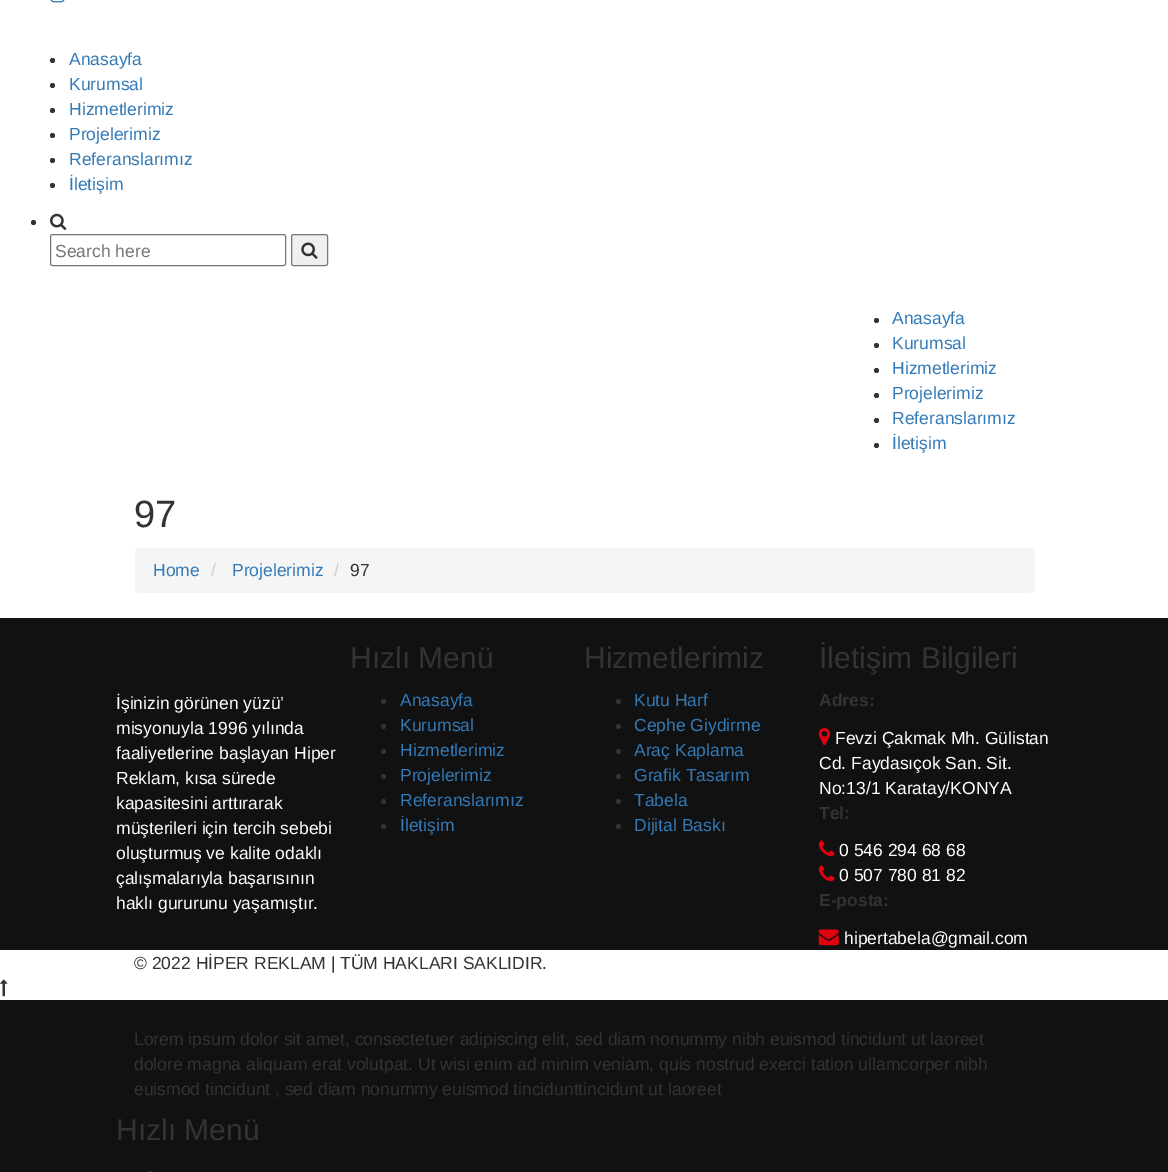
%!PS
<< /PageSize [1168 1172] >> setpagedevice
/rgb { dup -16 bitshift 255 div exch dup -8 bitshift 255 and 255 div exch 255 and 255 div setrgbcolor } def
/font { [ exch dup neg 0 0 3 -1 roll 0 0 ] selectfont } def
/text { moveto show } def
/circle { newpath 0 360 arc closepath } def
/roundrect { 5 dict begin { /r /h /w /y /x } { exch def } forall
  x r add y moveto x w add y 2 copy h add r arct x w add y h add x 1 index r arct
  x y h add x y r arct x y 2 copy exch w add exch r arct closepath end } def
/picture { 5 dict begin { /h /w /y /x /name } { exch def } forall
  gsave x y translate w h scale
  w h 8 [w 0 0 h 0 0] name (r) file false 3 colorimage grestore end } def
0 1172 translate 1 -1 scale
4 setmiterlimit
/s1 { /LiberationSans-Regular 17.5 font 16#337AB7 rgb } def
/s2 { /LiberationSans-Regular 17.5 font 16#757575 rgb } def
/s3 { /LiberationSans-Regular 38 font 16#333333 rgb } def
/s4 { /LiberationSans-Regular 17.5 font 16#CCCCCC rgb } def
/s5 { /LiberationSans-Regular 17.5 font 16#333333 rgb } def
/s6 { /LiberationSans-Regular 17.5 font 16#FFFFFF rgb } def
/s7 { /LiberationSans-Regular 30 font 16#333333 rgb } def
/s8 { /LiberationSans-Bold 17.5 font 16#333333 rgb } def
16#FFFFFF rgb
0 0 1168 1172 rectfill
(pic1.raw) 50 0 15 3 picture
16#333333 rgb
52.5 60.5 2.5 circle fill
s1
(Anasayfa) 69 65 text
16#333333 rgb
52.5 85.5 2.5 circle fill
s1
(Kurumsal) 69 90 text
16#333333 rgb
52.5 110.5 2.5 circle fill
s1
(Hizmetlerimiz) 69 115 text
16#333333 rgb
52.5 135.5 2.5 circle fill
s1
(Projelerimiz) 69 140 text
16#333333 rgb
52.5 160.5 2.5 circle fill
s1
(Referanslarımız) 69 165 text
16#333333 rgb
52.5 185.5 2.5 circle fill
s1
(İletişim) 69 190 text
16#333333 rgb
33.5 222.5 2.5 circle fill
(pic2.raw) 50 213 17 17 picture
16#767676 rgb
50.5 234.5 235 31 2 roundrect stroke
s2
(Search here) 55 257 text
16#EFEFEF rgb
291.5 234.5 36 31 2 roundrect gsave fill grestore
16#767676 rgb
stroke
(pic3.raw) 301 242 17 17 picture
16#333333 rgb
876.5 320.5 2.5 circle fill
s1
(Anasayfa) 892 324 text
16#333333 rgb
876.5 345.5 2.5 circle fill
s1
(Kurumsal) 892 349 text
16#333333 rgb
876.5 370.5 2.5 circle fill
s1
(Hizmetlerimiz) 892 374 text
16#333333 rgb
876.5 395.5 2.5 circle fill
s1
(Projelerimiz) 892 399 text
16#333333 rgb
876.5 420.5 2.5 circle fill
s1
(Referanslarımız) 892 424 text
16#333333 rgb
876.5 445.5 2.5 circle fill
s1
(İletişim) 892 449 text
s3
(97) 134 527 text
16#F5F5F5 rgb
135 548 900 45 5 roundrect fill
s1
(Home) 153 576 text
s4
(/) 211 576 text
s1
(Projelerimiz) 232 576 text
s4
(/) 334 576 text
s5
(97) 350 576 text
16#111111 rgb
0 618 1168 332 rectfill
s6
(İşinizin görünen yüzü’) 116 709 text
(misyonuyla 1996 yılında) 116 734 text
(faaliyetlerine başlayan Hiper) 116 759 text
(Reklam, kısa sürede) 116 784 text
(kapasitesini arttırarak) 116 809 text
(müşterileri için tercih sebebi) 116 834 text
(oluşturmuş ve kalite odaklı) 116 859 text
(çalışmalarıyla başarısının) 116 884 text
(haklı gururunu yaşamıştır.) 116 909 text
s7
(Hızlı Menü) 350 668 text
383.5 701.5 2.5 circle fill
s1
(Anasayfa) 400 706 text
16#333333 rgb
383.5 726.5 2.5 circle fill
s1
(Kurumsal) 400 731 text
16#333333 rgb
383.5 751.5 2.5 circle fill
s1
(Hizmetlerimiz) 400 756 text
16#333333 rgb
383.5 776.5 2.5 circle fill
s1
(Projelerimiz) 400 781 text
16#333333 rgb
383.5 801.5 2.5 circle fill
s1
(Referanslarımız) 400 806 text
16#333333 rgb
383.5 826.5 2.5 circle fill
s1
(İletişim) 400 831 text
s7
(Hizmetlerimiz) 584 668 text
618.5 701.5 2.5 circle fill
s1
(Kutu Harf) 634 706 text
16#333333 rgb
618.5 726.5 2.5 circle fill
s1
(Cephe Giydirme) 634 731 text
16#333333 rgb
618.5 751.5 2.5 circle fill
s1
(Araç Kaplama) 634 756 text
16#333333 rgb
618.5 776.5 2.5 circle fill
s1
(Grafik Tasarım) 634 781 text
16#333333 rgb
618.5 801.5 2.5 circle fill
s1
(Tabela) 634 806 text
16#333333 rgb
618.5 826.5 2.5 circle fill
s1
(Dijital Baskı) 634 831 text
s7
(İletişim Bilgileri) 819 668 text
s8
(Adres:) 819 706 text
(pic4.raw) 818 728 13 18 picture
s6
(Fevzi Çakmak Mh. Gülistan) 835 744 text
(Cd. Faydasıçok San. Sit.) 819 769 text
(No:13/1 Karatay/KONYA) 819 794 text
s8
(Tel:) 819 819 text
(pic5.raw) 818 840 17 17 picture
s6
(0 546 294 68 68) 839 856 text
(pic5.raw) 818 865 17 17 picture
(0 507 780 81 82) 839 881 text
s8
(E-posta:) 819 906 text
(pic6.raw) 818 929 21 17 picture
s6
(hipertabela@gmail.com) 844 944 text
s5
(© 2022 HİPER REKLAM | TÜM HAKLARI SAKLIDIR.) 134 969 text
(pic7.raw) 0 979 8 18 picture
16#111111 rgb
0 1000 1168 172 rectfill
s5
(Lorem ipsum dolor sit amet, consectetuer adipiscing elit, sed diam nonummy nibh euismod tincidunt ut laoreet) 134 1045 text
(dolore magna aliquam erat volutpat. Ut wisi enim ad minim veniam, quis nostrud exerci tation ullamcorper nibh) 134 1070 text
(euismod tincidunt , sed diam nonummy euismod tincidunttincidunt ut laoreet) 134 1095 text
s7
(Hızlı Menü) 116 1140 text
148 1171 5 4 2.5 roundrect fill
showpage
